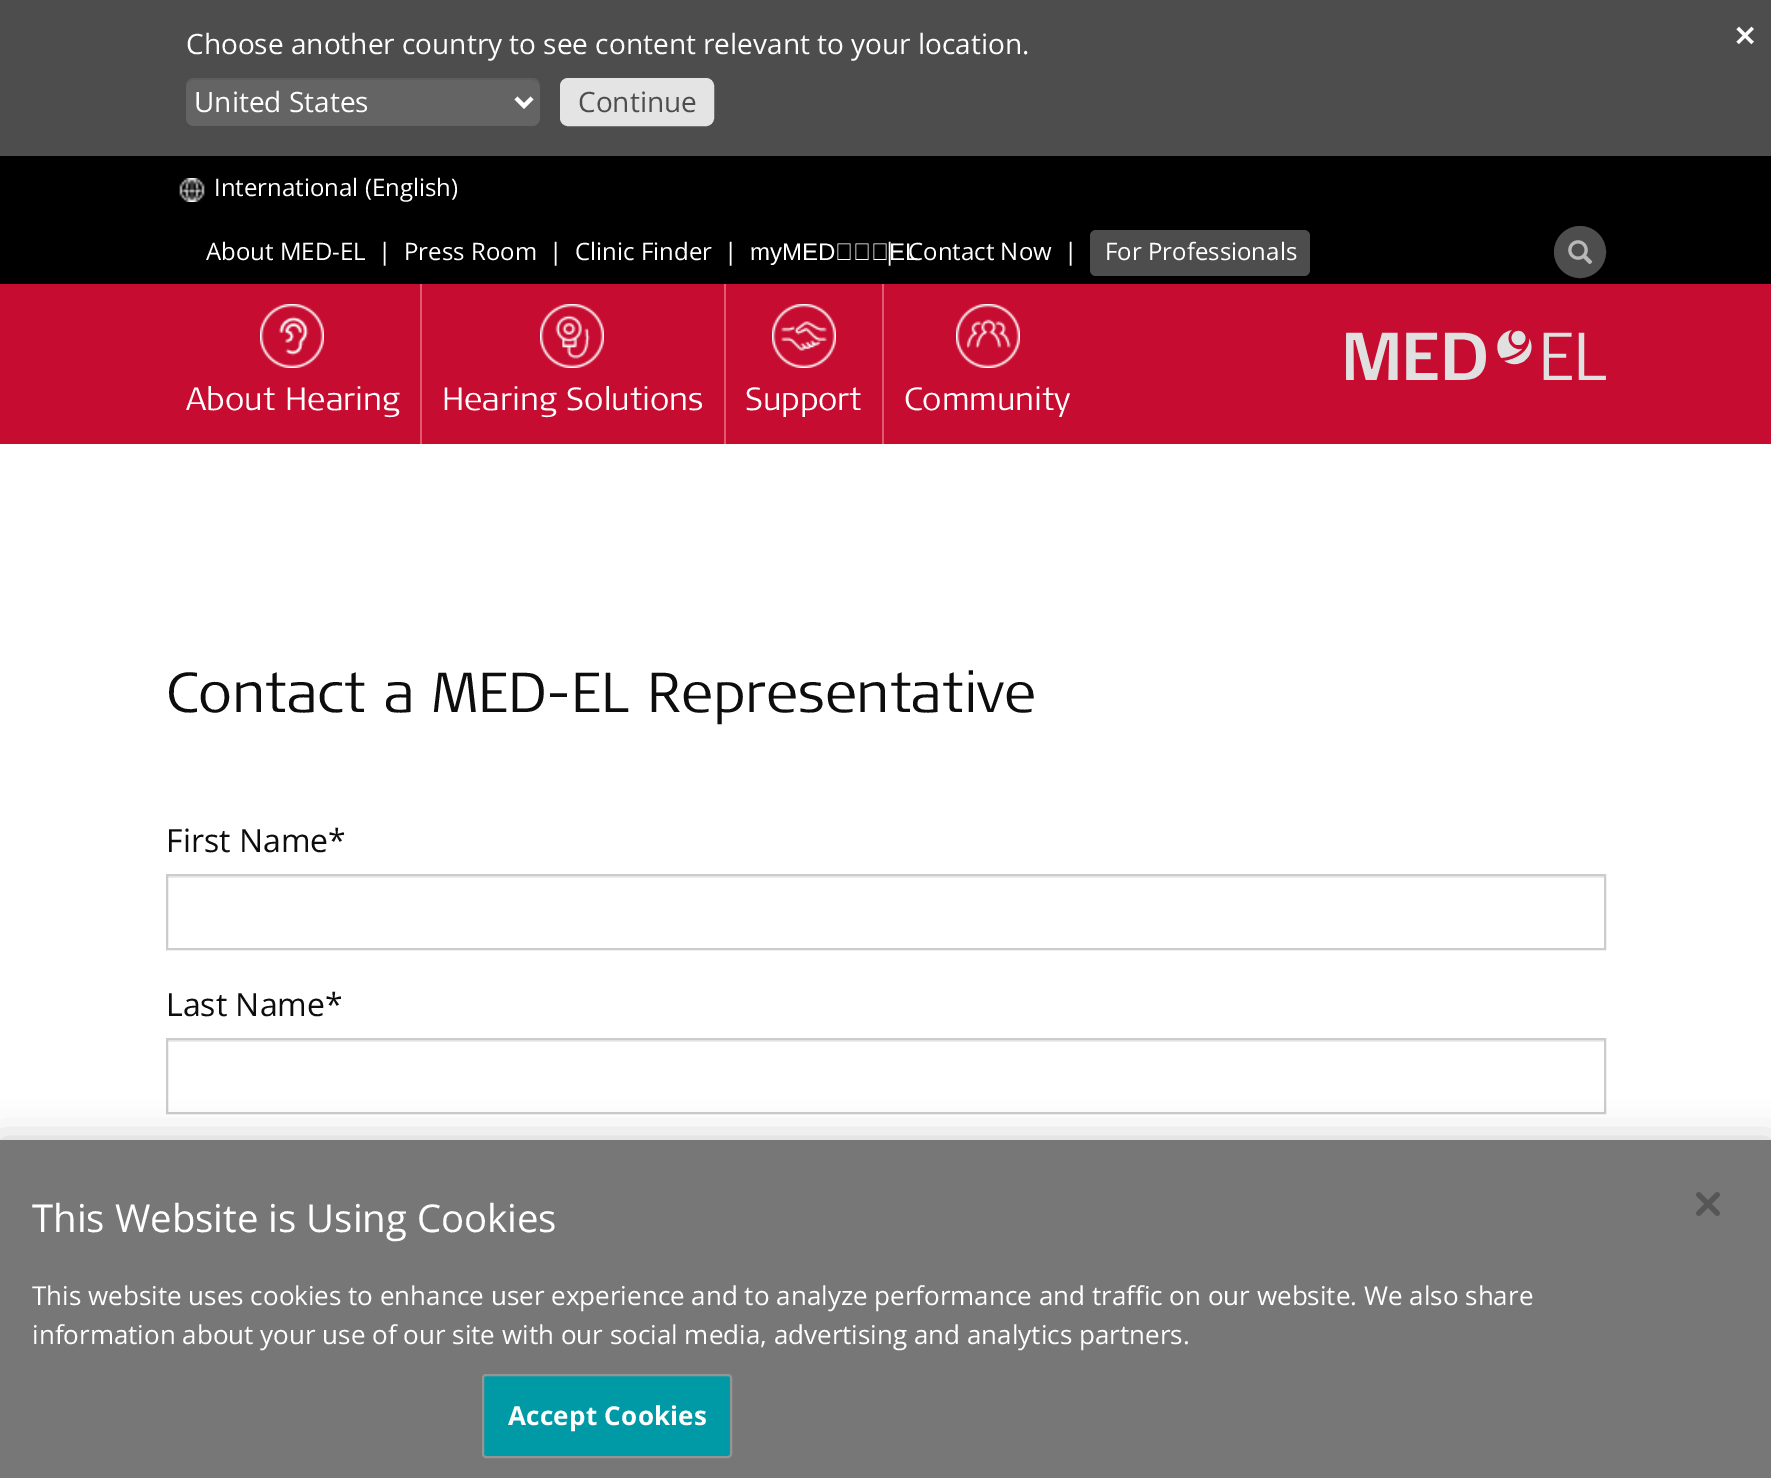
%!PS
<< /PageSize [1771 1478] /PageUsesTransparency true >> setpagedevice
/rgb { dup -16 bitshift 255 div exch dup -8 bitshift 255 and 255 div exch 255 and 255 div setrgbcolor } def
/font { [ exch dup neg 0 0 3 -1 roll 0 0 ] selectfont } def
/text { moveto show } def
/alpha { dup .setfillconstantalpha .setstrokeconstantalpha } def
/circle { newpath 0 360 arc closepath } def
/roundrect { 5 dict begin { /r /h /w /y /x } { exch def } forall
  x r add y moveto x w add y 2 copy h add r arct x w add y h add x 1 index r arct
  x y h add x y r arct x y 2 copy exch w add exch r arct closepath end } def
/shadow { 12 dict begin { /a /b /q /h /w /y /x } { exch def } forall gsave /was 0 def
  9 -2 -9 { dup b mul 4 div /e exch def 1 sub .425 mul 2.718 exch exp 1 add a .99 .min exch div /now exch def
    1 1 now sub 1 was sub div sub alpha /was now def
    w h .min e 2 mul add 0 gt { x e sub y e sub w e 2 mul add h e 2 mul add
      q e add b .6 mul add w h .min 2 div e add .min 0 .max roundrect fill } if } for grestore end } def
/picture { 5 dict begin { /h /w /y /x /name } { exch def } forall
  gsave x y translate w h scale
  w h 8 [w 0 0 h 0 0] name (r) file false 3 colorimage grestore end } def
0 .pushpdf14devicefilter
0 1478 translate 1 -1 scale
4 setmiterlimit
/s1 { /OpenSans-Regular 28 font 16#FFFFFF rgb } def
/s2 { /OpenSans-Regular 28 font 16#4D4D4D rgb } def
/s3 { /DejaVuSans-Bold 28 font 16#FFFFFF rgb } def
/s4 { /OpenSans-Regular 24 font 16#FFFFFF rgb } def
/s5 { /LiberationSans-Regular 24 font 16#FFFFFF rgb } def
/s6 { /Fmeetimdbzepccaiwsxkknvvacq-Light 32 font 16#FFFFFF rgb } def
/s7 { /Fmeetimdbzepccaiwsxkknvvacq-Light 56 font 16#0D0D0D rgb } def
/s8 { /OpenSans-Regular 32 font 16#0D0D0D rgb } def
/s9 { /OpenSans-Regular 38.4 font 16#FFFFFF rgb } def
/s10 { /OpenSans-Regular 26.02 font 16#FFFFFF rgb } def
16#FFFFFF rgb
0 0 1771 1478 rectfill
16#4D4D4D rgb
0 0 1771 156 rectfill
s1
(Choose another country to see content relevant to your location.) 186 54 text
16#646464 rgb
186 78 354 48 8 roundrect fill
0.07 alpha
16#000000 rgb
194 80 moveto 532 80 lineto 536 80 540 84 540 88 curveto 540 86 lineto 540 82 536 78 532 78 curveto 194 78 lineto 190 78 186 82 186 86 curveto 186 88 lineto 186 84 190 80 194 80 curveto closepath fill
1 alpha
16#FFFFFF rgb
4 setlinewidth
516 98 moveto 524 106 lineto 532 98 lineto stroke
(United States) 194 112 text
16#E4E4E4 rgb
561 79 152 46 7 roundrect gsave fill grestore
2 setlinewidth
stroke
s2
(Continue) 578 112 text
s3
(✕) 1733 46 text
16#000000 rgb
0 156 1771 128 rectfill
(pic1.raw) 179 178 26 24 picture
s4
(International \(English\)) 214 196 text
(About MED-EL) 206 260 text
(|) 378 260 text
(Press Room) 404 260 text
(|) 549 260 text
(Clinic Finder) 575 260 text
(|) 724 260 text
s5
(myMED‑EL) 750 260 text
s4
(|) 883 260 text
(Contact Now) 908 260 text
(|) 1064 260 text
16#4D4D4D rgb
1090 230 220 46 6 roundrect fill
s4
(For Professionals) 1105 260 text
16#4D4D4D rgb
1580 252 25 circle gsave fill grestore
stroke
(pic2.raw) 1568 240 25 25 picture
16#C60C30 rgb
0 284 1771 160 rectfill
(pic3.raw) 1346 330 260 50 picture
16#E05872 rgb
420 284 2 160 rectfill
(pic4.raw) 260 304 64 64 picture
s6
(About Hearing) 186 410 text
16#E05872 rgb
724 284 2 160 rectfill
(pic5.raw) 540 304 64 64 picture
s6
(Hearing Solutions) 442 410 text
16#E05872 rgb
882 284 2 160 rectfill
(pic6.raw) 772 304 64 64 picture
s6
(Support) 745 410 text
(pic7.raw) 956 304 64 64 picture
(Community) 904 410 text
s7
(Contact a MED-EL Representative) 166 712 text
s8
(First Name*) 166 852 text
16#ECECEC rgb
168 876 1436 2 rectfill
16#CCCCCC rgb
167 875 1438 74 rectstroke
s8
(Last Name*) 166 1016 text
16#ECECEC rgb
168 1040 1436 2 rectfill
16#CCCCCC rgb
167 1039 1438 74 rectstroke
16#000000 rgb
0 1140 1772 338 0 18 0.2 shadow
16#777777 rgb
0 1140 1771 338 rectfill
s9
(This Website is Using Cookies) 32 1232 text
s10
(This website uses cookies to enhance user experience and to analyze performance and traffic on our website. We also share) 32 1305 text
(information about your use of our site with our social media, advertising and analytics partners.) 32 1344 text
16#009AA6 rgb
483 1375 248 82 3 roundrect gsave fill grestore
16#979594 rgb
stroke
/OpenSans-Bold 26.02 font
16#FFFFFF rgb
508 1425 moveto 0.25 0 (Accept Cookies) ashow
(pic8.raw) 1696 1192 24 24 picture
.poppdf14devicefilter showpage
